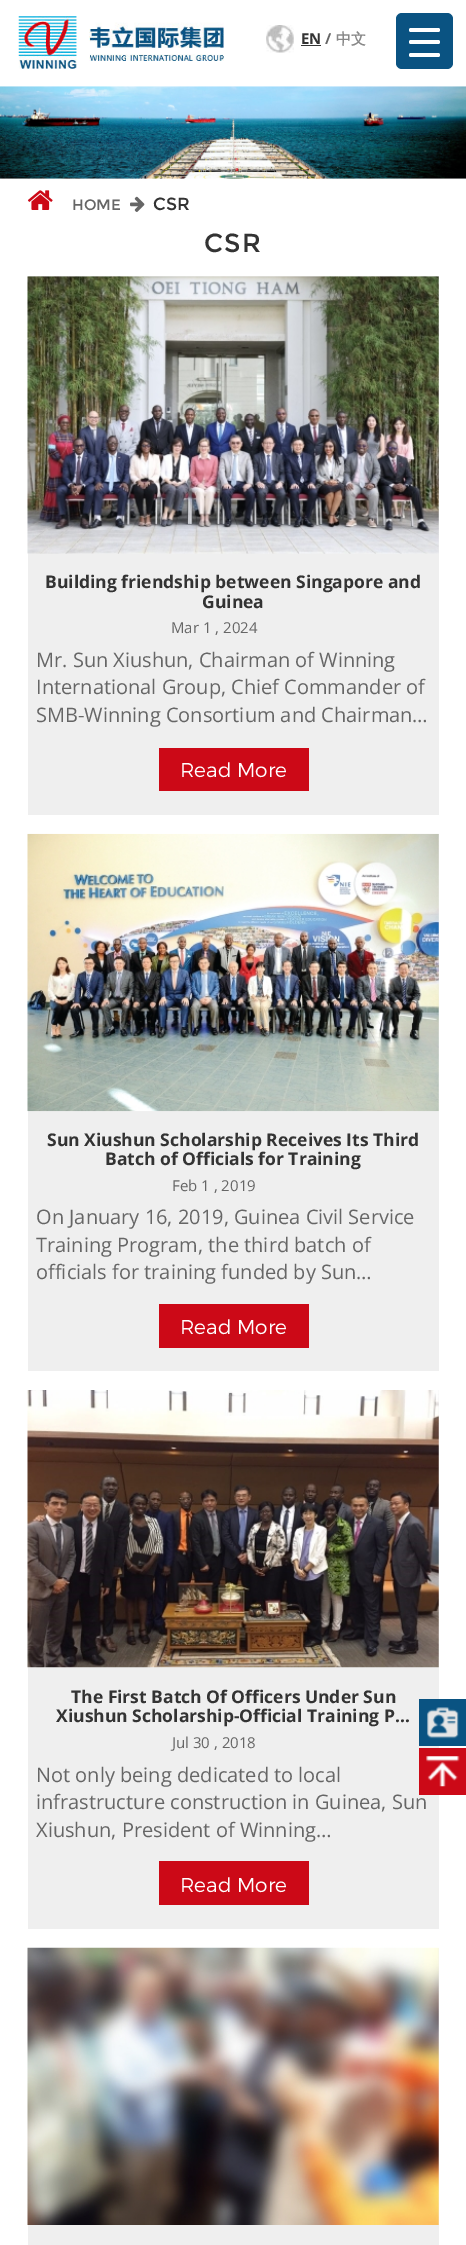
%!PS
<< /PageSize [466 2245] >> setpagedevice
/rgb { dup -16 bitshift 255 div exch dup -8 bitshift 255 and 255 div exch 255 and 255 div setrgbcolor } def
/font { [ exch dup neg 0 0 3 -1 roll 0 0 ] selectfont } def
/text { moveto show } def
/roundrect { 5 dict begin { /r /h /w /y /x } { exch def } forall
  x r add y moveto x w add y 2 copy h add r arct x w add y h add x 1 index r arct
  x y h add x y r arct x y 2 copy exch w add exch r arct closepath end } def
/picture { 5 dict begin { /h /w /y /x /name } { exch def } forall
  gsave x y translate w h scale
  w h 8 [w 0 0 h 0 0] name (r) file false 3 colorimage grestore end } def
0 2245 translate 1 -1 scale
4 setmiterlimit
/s1 { /OpenSans-Bold 15 font 16#333333 rgb } def
/s2 { /OpenSans-Bold 15 font 16#666666 rgb } def
/s3 { /WenQuanYiZenHei-Bold 15 font 16#888888 rgb } def
/s4 { /Montserrat-Regular 15 font 16#666666 rgb } def
/s5 { /Montserrat-Regular 17.5 font 16#333333 rgb } def
/s6 { /OpenSans-Bold 17.5 font 16#333333 rgb } def
/s7 { /OpenSans-Regular 15 font 16#666666 rgb } def
/s8 { /OpenSans-Regular 20 font 16#666666 rgb } def
/s9 { /Montserrat-Light 20 font 16#FFFFFF rgb } def
16#FFFFFF rgb
0 0 466 2245 rectfill
(pic1.raw) 18 16 206 53 picture
(pic2.raw) 266 25 28 28 picture
s1
(EN) 301 44 text
301 45 20 1 rectfill
s2
(/) 325 44 text
s3
(中文) 336 44 text
(pic3.raw) 0 86 466 93 picture
16#0A5382 rgb
396 13 57 56 6 roundrect fill
16#FFFFFF rgb
409 40 31 4 2 roundrect fill
409 28 31 4 2 roundrect fill
409 53 31 4 2 roundrect fill
(pic4.raw) 27 190 26 20 picture
s4
(HOME) 72 210 text
(pic5.raw) 130 196 15 16 picture
s5
(CSR) 153 210 text
/Montserrat-Regular 26 font
204 252 moveto 1 0 (CSR) ashow
16#EFEFEF rgb
28 276 411 539 rectfill
(pic6.raw) 27 276 412 278 picture
s6
(Building friendship between Singapore and) 45 588 text
(Guinea) 202 608 text
s7
(Mar 1 , 2024) 171 633 text
s8
(Mr. Sun Xiushun, Chairman of Winning) 36 667 text
(International Group, Chief Commander of) 36 694 text
(SMB-Winning Consortium and Chairman…) 36 722 text
16#CC0917 rgb
159 748 150 43 rectfill
s9
(Read More) 180 777 text
16#EFEFEF rgb
28 834 411 537 rectfill
(pic7.raw) 27 833 412 279 picture
s6
(Sun Xiushun Scholarship Receives Its Third) 47 1146 text
(Batch of Officials for Training) 105 1165 text
s7
(Feb 1 , 2019) 172 1191 text
s8
(On January 16, 2019, Guinea Civil Service) 36 1224 text
(Training Program, the third batch of) 36 1252 text
(officials for training funded by Sun…) 36 1279 text
16#CC0917 rgb
159 1304 150 44 rectfill
s9
(Read More) 180 1334 text
16#EFEFEF rgb
28 1390 411 539 rectfill
(pic8.raw) 27 1390 412 278 picture
s6
(The First Batch Of Officers Under Sun) 71 1703 text
(Xiushun Scholarship-Official Training P…) 56 1722 text
s7
(Jul 30 , 2018) 172 1748 text
s8
(Not only being dedicated to local) 36 1782 text
(infrastructure construction in Guinea, Sun) 36 1809 text
(Xiushun, President of Winning…) 36 1837 text
16#CC0917 rgb
159 1861 150 44 rectfill
s9
(Read More) 180 1892 text
16#EFEFEF rgb
28 1948 411 297 rectfill
(pic9.raw) 27 1947 412 278 picture
16#0A5382 rgb
419 1699 47 47 rectfill
(pic10.raw) 427 1707 32 32 picture
16#CC0917 rgb
419 1748 47 47 rectfill
(pic11.raw) 426 1756 34 31 picture
showpage
